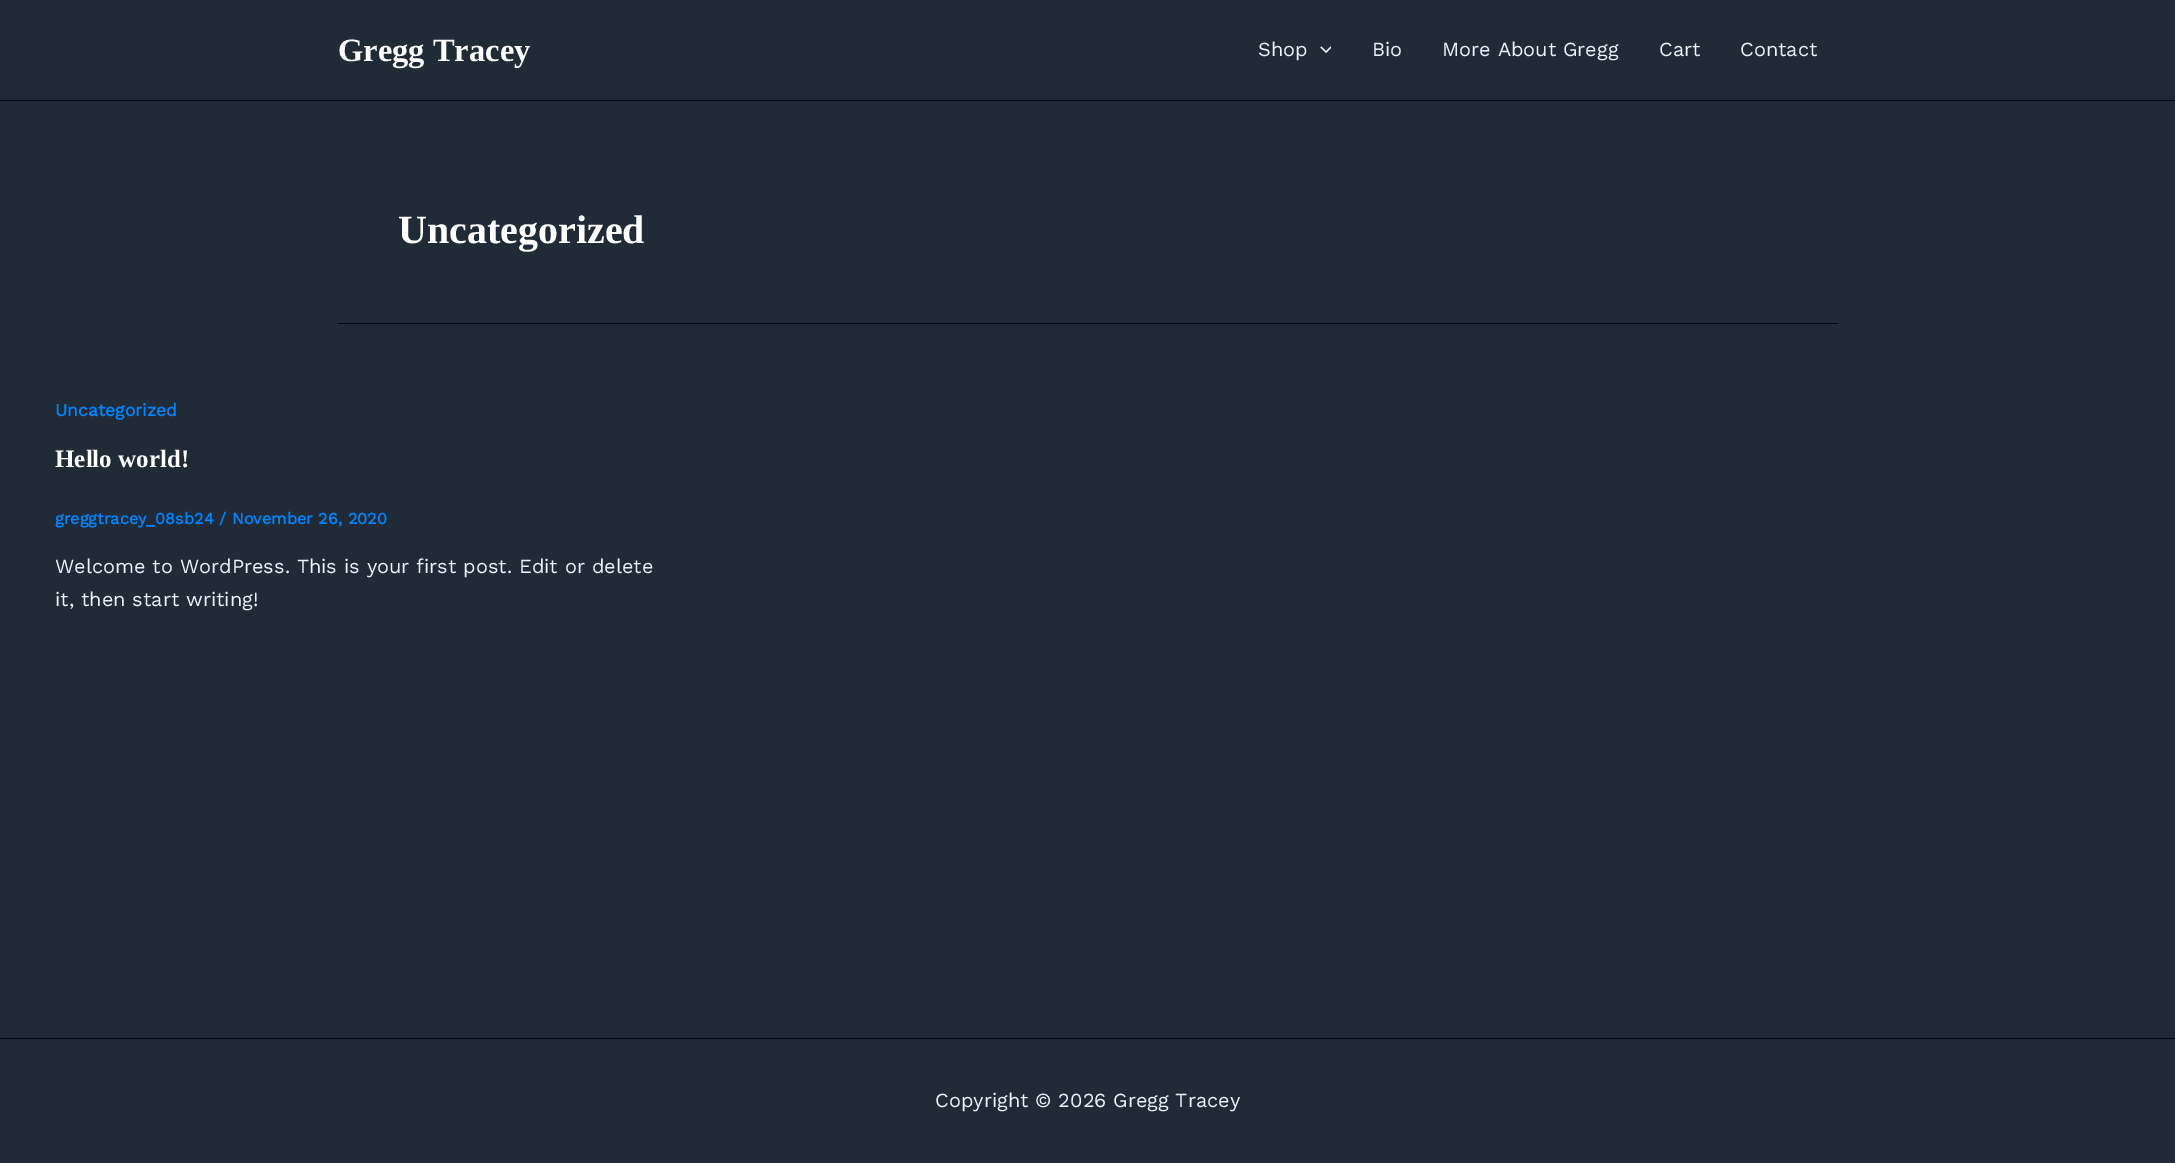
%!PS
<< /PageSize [2175 1163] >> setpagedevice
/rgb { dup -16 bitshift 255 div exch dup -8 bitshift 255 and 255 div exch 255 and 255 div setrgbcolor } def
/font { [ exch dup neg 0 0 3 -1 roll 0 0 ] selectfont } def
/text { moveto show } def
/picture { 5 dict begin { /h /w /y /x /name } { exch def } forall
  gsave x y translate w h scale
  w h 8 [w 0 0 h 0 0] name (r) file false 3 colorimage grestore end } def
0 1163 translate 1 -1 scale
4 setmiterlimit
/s1 { /LiberationSerif-Bold 32.5 font 16#FFFFFF rgb } def
/s2 { /WorkSans-Regular 20 font 16#E7F6FF rgb } def
/s3 { /LiberationSerif-Bold 40 font 16#FFFFFF rgb } def
/s4 { /WorkSans-Bold 17.5 font 16#0085FF rgb } def
/s5 { /LiberationSerif-Bold 25 font 16#FFFFFF rgb } def
/s6 { /WorkSans-Bold 16.25 font 16#0085FF rgb } def
16#212A37 rgb
0 0 2175 1163 rectfill
16#070614 rgb
0 100 2175 1 rectfill
s1
(Gregg Tracey) 338 61 text
s2
(Shop) 1258 56 text
(pic1.raw) 1320 46 11 8 picture
(Bio) 1372 56 text
(More About Gregg) 1442 56 text
(Cart) 1659 56 text
(Contact) 1740 56 text
16#070614 rgb
338 323 1500 1 rectfill
s3
(Uncategorized) 398 243 text
s4
(Uncategorized) 55 416 text
s5
(Hello world!) 55 467 text
s6
(greggtracey_08sb24 / November 26, 2020) 55 524 text
s2
(Welcome to WordPress. This is your first post. Edit or delete) 55 573 text
(it, then start writing!) 55 606 text
16#070614 rgb
0 1038 2175 1 rectfill
s2
(Copyright © 2026 Gregg Tracey) 935 1107 text
showpage
